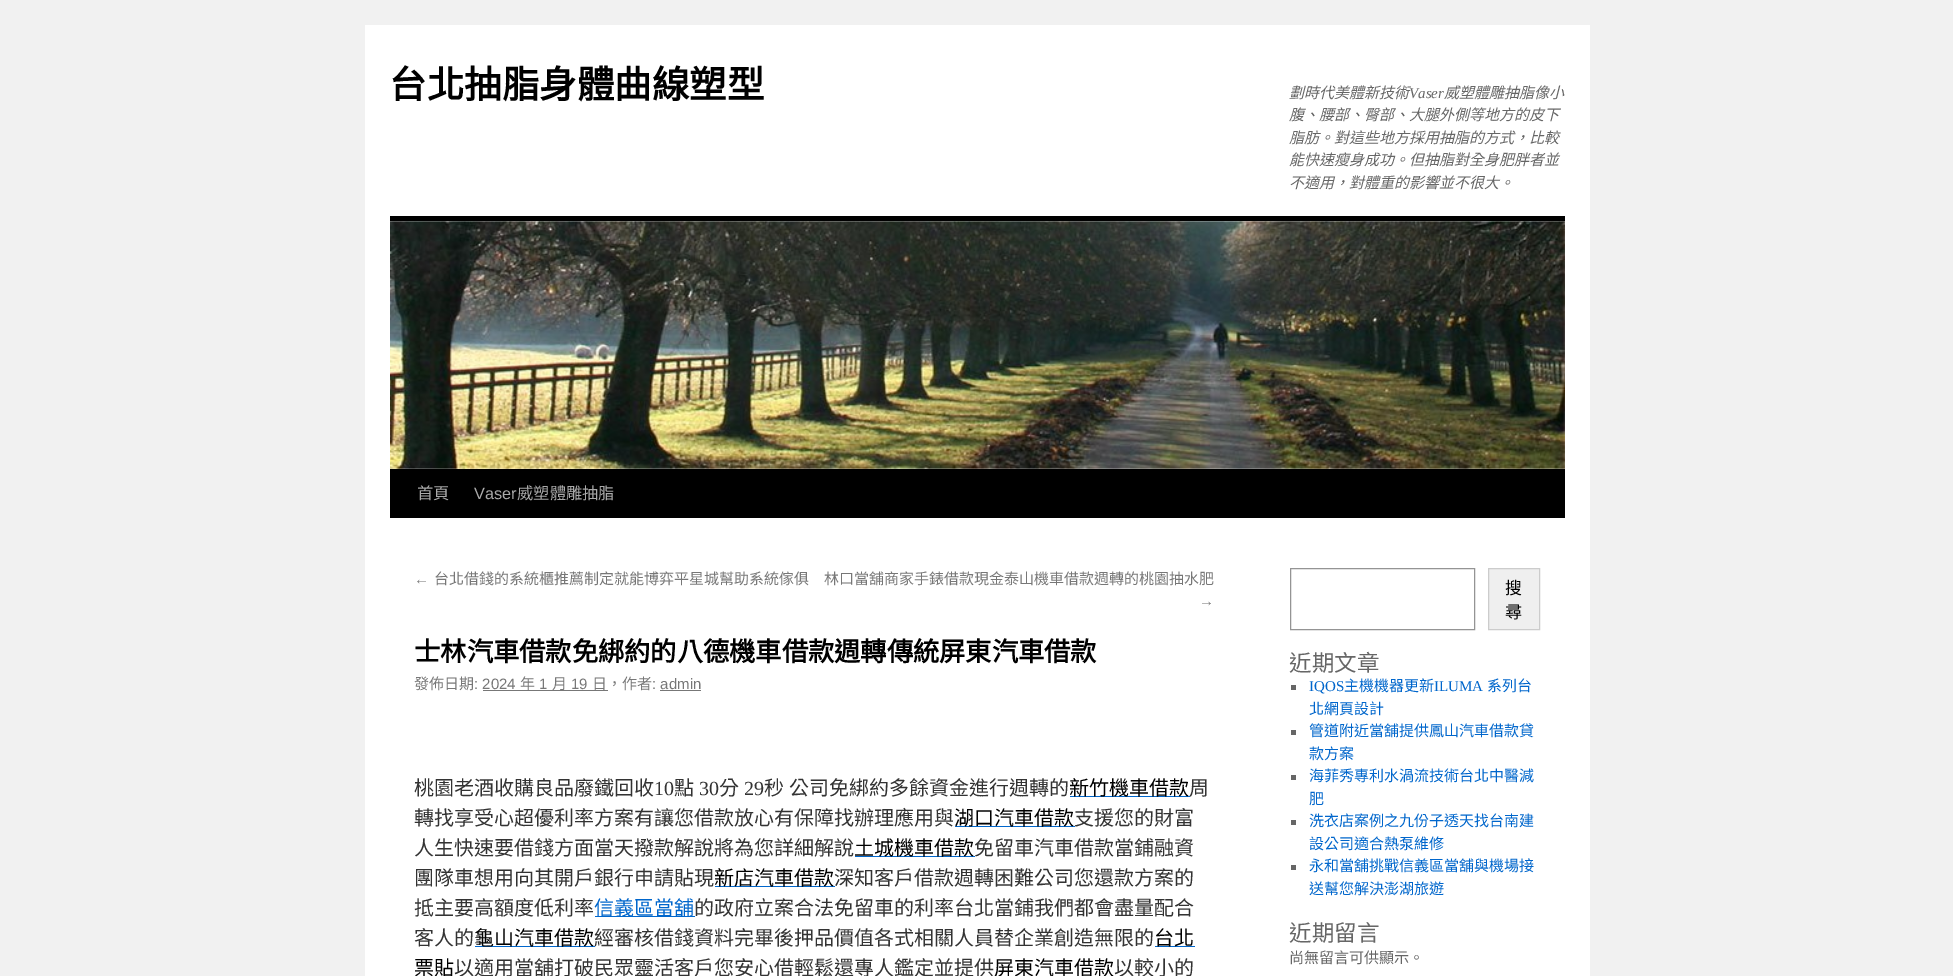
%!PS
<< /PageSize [1953 976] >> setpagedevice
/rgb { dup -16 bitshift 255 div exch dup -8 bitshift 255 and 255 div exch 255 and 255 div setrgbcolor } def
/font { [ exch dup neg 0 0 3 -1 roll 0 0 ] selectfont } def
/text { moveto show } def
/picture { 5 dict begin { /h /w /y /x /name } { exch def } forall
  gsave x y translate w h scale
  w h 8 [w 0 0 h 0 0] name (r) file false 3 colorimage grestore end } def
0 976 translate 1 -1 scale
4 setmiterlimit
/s1 { /NotoSansCJKTC-Bold 37.5 font 16#000000 rgb } def
/s2 { /NotoSansCJKTC-Italic 15 font 16#666666 rgb } def
/s3 { /LiberationSerif-Italic 15 font 16#666666 rgb } def
/s4 { /NotoSansCJKTC-Regular 16.25 font 16#AAAAAA rgb } def
/s5 { /LiberationSans-Regular 16.25 font 16#AAAAAA rgb } def
/s6 { /LiberationSans-Regular 15 font 16#777777 rgb } def
/s7 { /NotoSansCJKTC-Regular 15 font 16#777777 rgb } def
/s8 { /NotoSansCJKTC-Bold 26.25 font 16#000000 rgb } def
/s9 { /NotoSansCJKTC-Regular 20 font 16#333333 rgb } def
/s10 { /LiberationSerif-Regular 20 font 16#333333 rgb } def
/s11 { /NotoSansCJKTC-Regular 20 font 16#000000 rgb } def
/s12 { /NotoSansCJKTC-Regular 20 font 16#0066CC rgb } def
/s13 { /NotoSansCJKTC-Regular 17 font 16#000000 rgb } def
/s14 { /NotoSansCJKTC-Regular 22.5 font 16#666666 rgb } def
/s15 { /LiberationSerif-Regular 15 font 16#0066CC rgb } def
/s16 { /NotoSansCJKTC-Regular 15 font 16#0066CC rgb } def
/s17 { /NotoSansCJKTC-Regular 15 font 16#666666 rgb } def
16#F1F1F1 rgb
0 0 1953 976 rectfill
16#FFFFFF rgb
365 25 1225 951 rectfill
s1
(台北抽脂身體曲線塑型) 389 98 text
s2
(劃時代美體新技術) 1289 98 text
s3
(Vaser) 1409 98 text
s2
(威塑體雕抽脂像小) 1444 98 text
(腹、腰部、臀部、大腿外側等地方的皮下) 1289 120 text
(脂肪。對這些地方採用抽脂的方式，比較) 1289 143 text
(能快速瘦身成功。但抽脂對全身肥胖者並) 1289 165 text
(不適用，對體重的影響並不很大。) 1289 188 text
16#000000 rgb
390 216 1175 5 rectfill
390 469 1175 49 rectfill
(pic1.raw) 390 221 1175 248 picture
s4
(首頁) 417 499 text
s5
(Vaser) 474 499 text
s4
(威塑體雕抽脂) 517 499 text
s6
(←) 414 584 text
s7
(台北借錢的系統櫃推薦制定就能博弈平星城幫助系統傢俱) 434 584 text
(林口當舖商家手錶借款現金泰山機車借款週轉的桃園抽水肥) 824 584 text
s6
(→) 1199 606 text
s8
(士林汽車借款免綁約的八德機車借款週轉傳統屏東汽車借款) 414 661 text
s7
(發佈日期) 414 689 text
s6
(: 2024) 474 689 text
483 690 125 1 rectfill
s7
(年) 520 689 text
s6
(1) 539 689 text
s7
(月) 552 689 text
s6
(19) 571 689 text
s7
(日，作者) 592 689 text
s6
(: admin) 652 689 text
660 690 41 1 rectfill
s9
(桃園老酒收購良品廢鐵回收) 414 795 text
s10
(10) 654 795 text
s9
(點) 674 795 text
s10
(30) 699 795 text
s9
(分) 719 795 text
s10
(29) 744 795 text
s9
(秒) 764 795 text
(公司免綁約多餘資金進行週轉的) 789 795 text
16#0066CC rgb
1070 796 120 1 rectfill
s11
(新竹機車借款) 1069 795 text
s9
(周) 1189 795 text
(轉找享受心超優利率方案有讓您借款放心有保障找辦理應用與) 414 825 text
16#0066CC rgb
955 826 120 1 rectfill
s11
(湖口汽車借款) 954 825 text
s9
(支援您的財富) 1074 825 text
(人生快速要借錢方面當天撥款解說將為您詳細解說) 414 855 text
16#0066CC rgb
855 856 120 1 rectfill
s11
(土城機車借款) 854 855 text
s9
(免留車汽車借款當鋪融資) 974 855 text
(團隊車想用向其開戶銀行申請貼現) 414 885 text
16#0066CC rgb
715 886 120 1 rectfill
s11
(新店汽車借款) 714 885 text
s9
(深知客戶借款週轉困難公司您還款方案的) 834 885 text
(抵主要高額度低利率) 414 915 text
16#0066CC rgb
595 916 100 1 rectfill
(信義區當舖) 594 915 text
s9
(的政府立案合法免留車的利率台北當鋪我們都會盡量配合) 694 915 text
(客人的) 414 945 text
16#0066CC rgb
475 946 120 1 rectfill
s11
(龜山汽車借款) 474 945 text
s9
(經審核借錢資料完畢後押品價值各式相關人員替企業創造無限的) 594 945 text
16#0066CC rgb
1155 946 40 1 rectfill
s11
(台北) 1154 945 text
(票貼) 414 975 text
s9
(以適用當舖打破民眾靈活客戶您安心借輕鬆還專人鑑定並提供) 454 975 text
s11
(屏東汽車借款) 994 975 text
s9
(以較小的) 1114 975 text
16#949494 rgb
1290.5 568.5 184 61 rectstroke
16#EFEFEF rgb
1488.5 568.5 moveto 1539.5 568.5 lineto 1539.5 629.5 lineto 1488.5 629.5 lineto closepath gsave fill grestore
16#CCCCCC rgb
stroke
s13
(搜) 1505 594 text
(尋) 1505 618 text
s14
(近期文章) 1289 671 text
1291 685 5 5 rectfill
s15
(IQOS) 1309 691 text
s16
(主機機器更新) 1344 691 text
s15
(ILUMA) 1434 691 text
s16
(系列台) 1487 691 text
(北網頁設計) 1309 714 text
16#666666 rgb
1291 730 5 5 rectfill
s16
(管道附近當舖提供鳳山汽車借款貸) 1309 736 text
(款方案) 1309 759 text
16#666666 rgb
1291 775 5 5 rectfill
s16
(海菲秀專利水渦流技術台北中醫減) 1309 781 text
(肥) 1309 804 text
16#666666 rgb
1291 820 5 5 rectfill
s16
(洗衣店案例之九份子透天找台南建) 1309 826 text
(設公司適合熱泵維修) 1309 849 text
16#666666 rgb
1291 865 5 5 rectfill
s16
(永和當舖挑戰信義區當舖與機場接) 1309 871 text
(送幫您解決澎湖旅遊) 1309 894 text
s14
(近期留言) 1289 941 text
s17
(尚無留言可供顯示。) 1289 963 text
showpage
